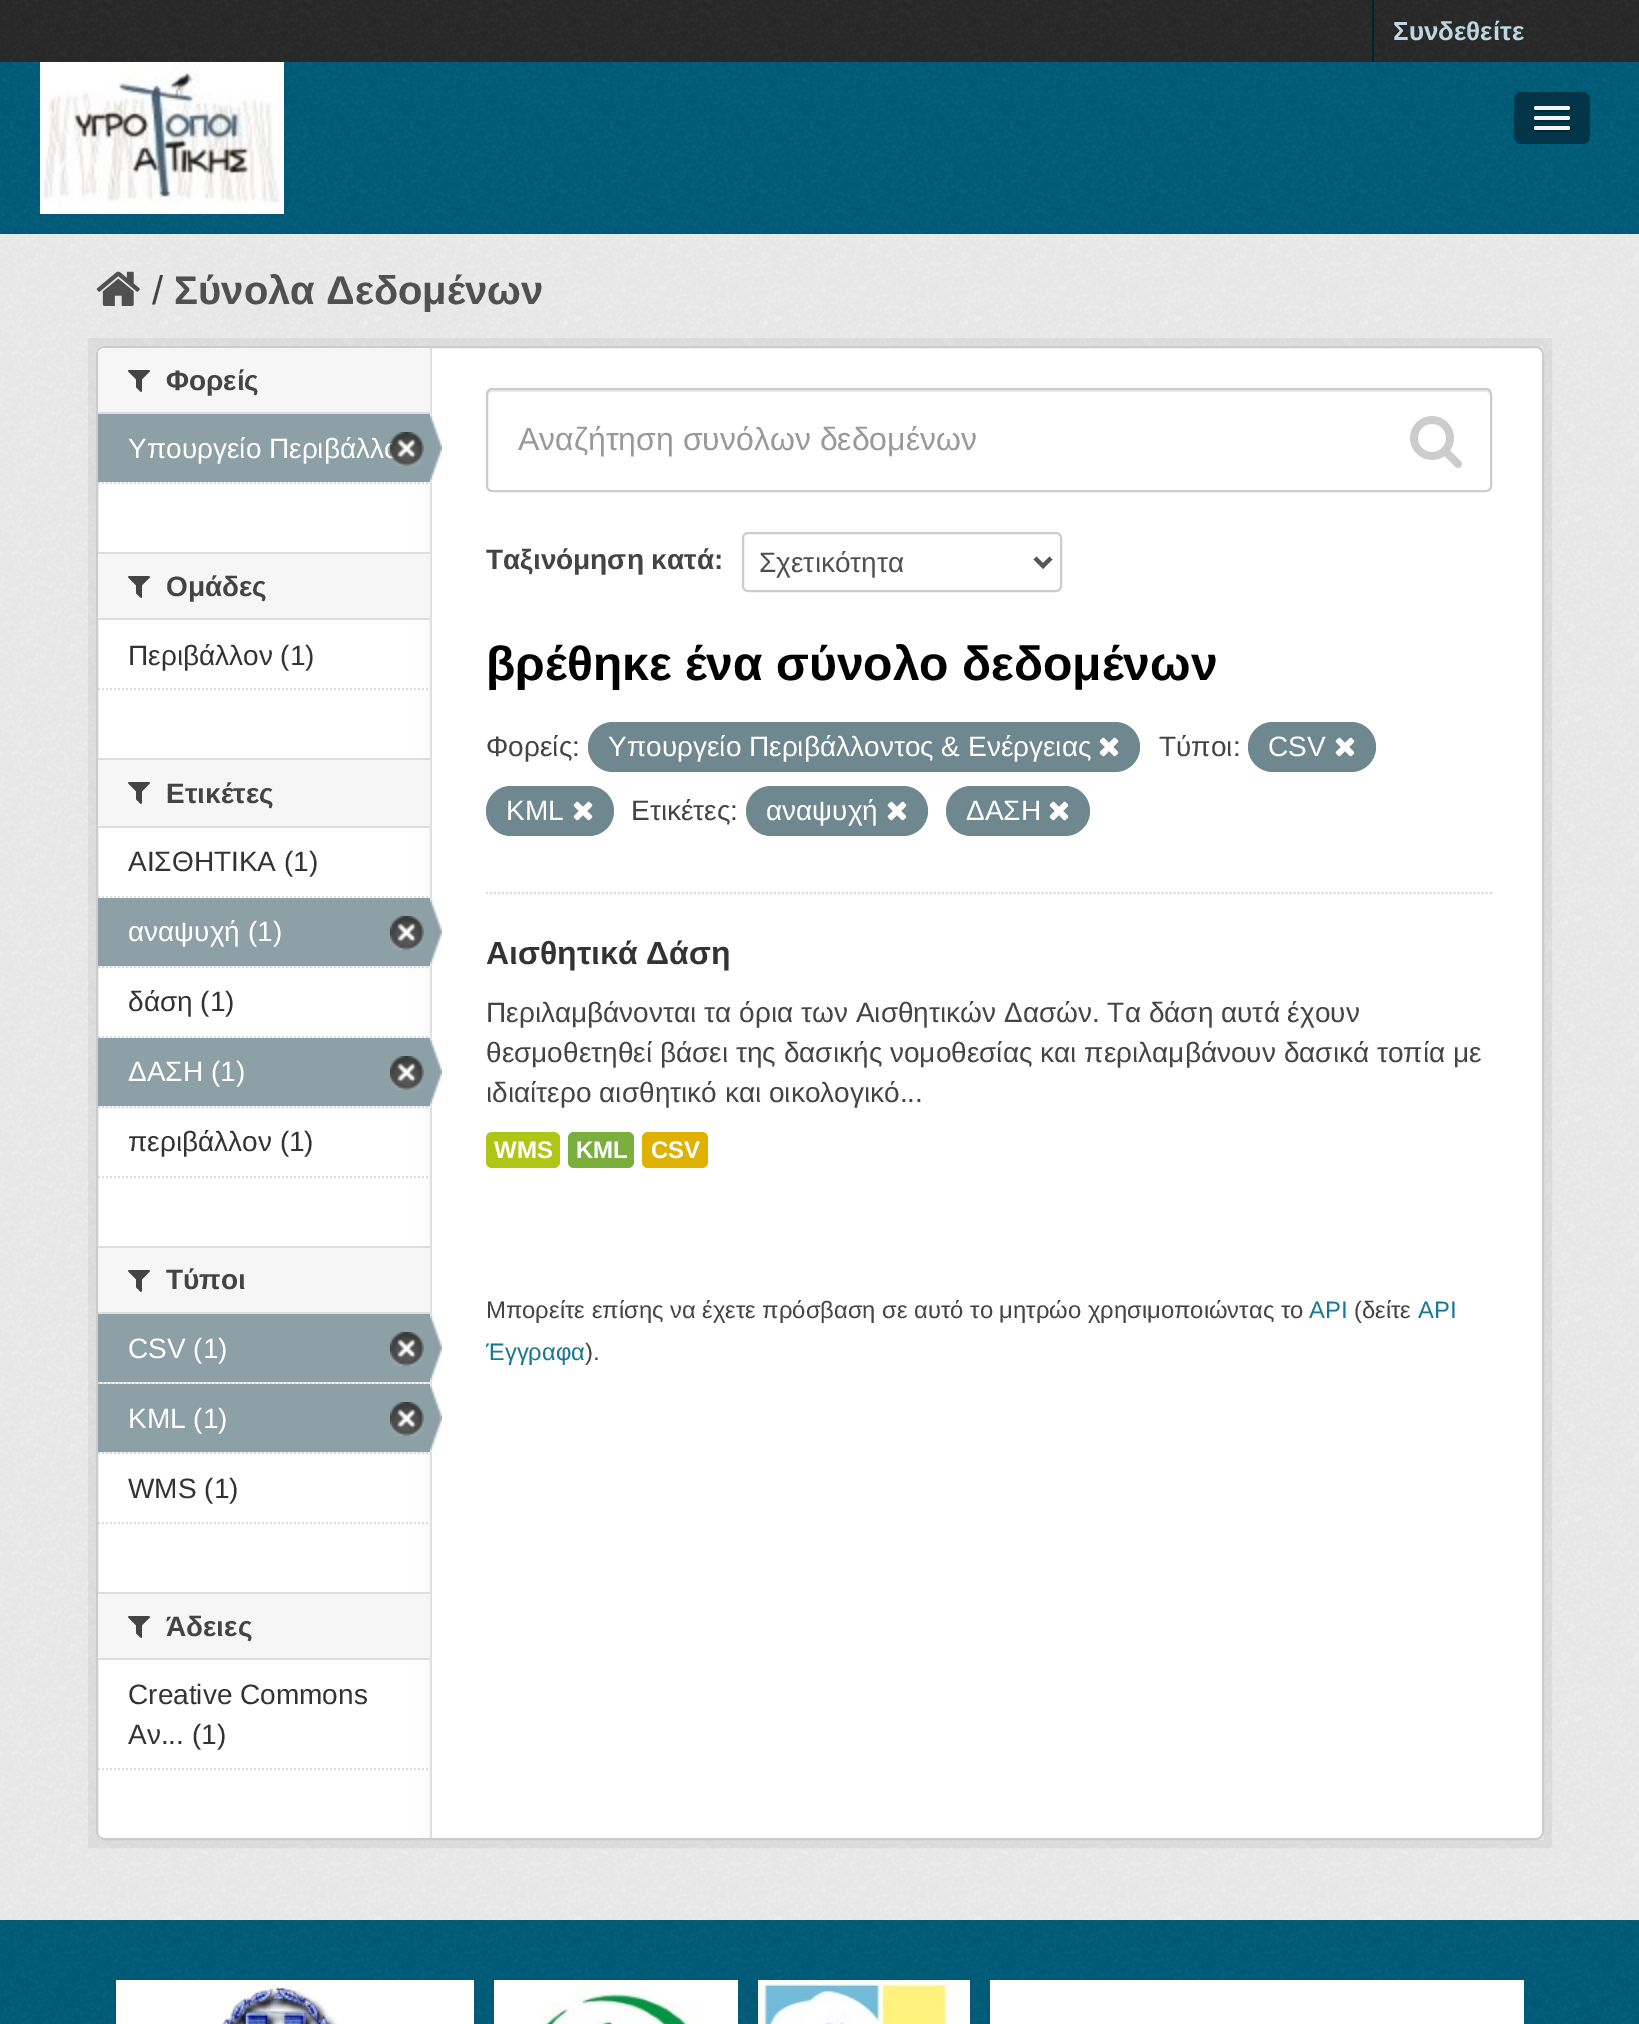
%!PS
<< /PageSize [1639 2024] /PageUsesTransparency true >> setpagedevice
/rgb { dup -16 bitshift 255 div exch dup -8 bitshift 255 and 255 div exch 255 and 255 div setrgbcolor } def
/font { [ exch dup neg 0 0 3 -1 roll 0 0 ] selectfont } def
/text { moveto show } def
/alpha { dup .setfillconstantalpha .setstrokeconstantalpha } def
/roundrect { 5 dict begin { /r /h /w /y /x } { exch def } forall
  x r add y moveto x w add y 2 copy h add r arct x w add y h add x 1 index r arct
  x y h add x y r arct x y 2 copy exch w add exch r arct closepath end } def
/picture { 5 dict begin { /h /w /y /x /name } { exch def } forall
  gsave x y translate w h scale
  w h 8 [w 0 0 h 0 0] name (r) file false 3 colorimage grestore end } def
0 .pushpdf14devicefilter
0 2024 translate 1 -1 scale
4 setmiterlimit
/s1 { /LiberationSans-Bold 26 font 16#BFD7DE rgb } def
/s2 { /LiberationSans-Regular 40 font 16#444444 rgb } def
/s3 { /LiberationSans-Bold 40 font 16#505050 rgb } def
/s4 { /LiberationSans-Bold 28 font 16#444444 rgb } def
/s5 { /LiberationSans-Regular 28 font 16#FFFFFF rgb } def
/s6 { /LiberationSans-Regular 28 font 16#333333 rgb } def
/s7 { /LiberationSans-Regular 32 font 16#999999 rgb } def
/s8 { /LiberationSans-Regular 28 font 16#505050 rgb } def
/s9 { /LiberationSans-Bold 48 font 16#000000 rgb } def
/s10 { /LiberationSans-Regular 28 font 16#444444 rgb } def
/s11 { /LiberationSans-Bold 32 font 16#333333 rgb } def
/s12 { /LiberationSans-Bold 24 font 16#FFFFFF rgb } def
/s13 { /LiberationSans-Regular 23.8 font 16#444444 rgb } def
/s14 { /LiberationSans-Regular 23.8 font 16#187794 rgb } def
16#282828 rgb
0 0 1639 2024 rectfill
(pic1.raw) 2 0 1636 62 picture
16#00232E rgb
1372 0 2 62 rectfill
s1
(Συνδεθείτε) 1393 40 text
16#005D7A rgb
0 62 1639 172 rectfill
(pic2.raw) 0 62 1639 172 picture
(pic3.raw) 40 62 244 152 picture
16#003647 rgb
1514 92 76 52 8 roundrect fill
16#002935 rgb
1534.5 109 moveto 1532 113 1541 112 1541.5 112 curveto 1562.5 112 lineto 1563 112 1572 113 1569.5 109 curveto 1569.5 109.5 1568.5 110 1568 110 curveto 1536 110 lineto 1535.5 110 1534.5 109.5 1534.5 109 curveto closepath fill
16#F5F5F5 rgb
1534 106 36 4 2 roundrect fill
16#002935 rgb
1534.5 119 moveto 1532 123 1541 122 1541.5 122 curveto 1562.5 122 lineto 1563 122 1572 123 1569.5 119 curveto 1569.5 119.5 1568.5 120 1568 120 curveto 1536 120 lineto 1535.5 120 1534.5 119.5 1534.5 119 curveto closepath fill
16#F5F5F5 rgb
1534 116 36 4 2 roundrect fill
16#002935 rgb
1534.5 129 moveto 1532 133 1541 132 1541.5 132 curveto 1562.5 132 lineto 1563 132 1572 133 1569.5 129 curveto 1569.5 129.5 1568.5 130 1568 130 curveto 1536 130 lineto 1535.5 130 1534.5 129.5 1534.5 129 curveto closepath fill
16#F5F5F5 rgb
1534 126 36 4 2 roundrect fill
16#EEEEEE rgb
0 234 1639 1686 rectfill
(pic4.raw) 0 234 1639 1686 picture
(pic5.raw) 96 271 44 35 picture
s2
(/) 152 304 text
s3
(Σύνολα Δεδομένων) 174 304 text
0.05 alpha
16#000000 rgb
8 setlinewidth
92 342 1456 1502 rectstroke
1 alpha
16#FFFFFF rgb
96 346 1448 1494 8 roundrect fill
(pic6.raw) 96 346 336 1494 picture
16#CCCCCC rgb
2 setlinewidth
97 347 1446 1492 7 roundrect stroke
16#F6F6F6 rgb
104 348 moveto 430 348 lineto 430 414 lineto 98 414 lineto 98 354 lineto 98 350.5 100.5 348 104 348 curveto closepath fill
16#DDDDDD rgb
98 412 332 2 rectfill
(pic7.raw) 128 370 22 22 picture
s4
(Φορείς) 166 390 text
16#8CA0A6 rgb
98 414 332 68 rectfill
s5
(Υπουργείο Περιβάλλο) 128 458 text
(pic8.raw) 390 432 34 34 picture
(pic9.raw) 430 414 12 68 picture
16#DDDDDD rgb
[2 2] 0 setdash
98 483 moveto 430 483 lineto stroke
16#F6F6F6 rgb
98 554 331 64 rectfill
16#DDDDDD rgb
98 552 332 2 rectfill
98 618 332 2 rectfill
(pic7.raw) 128 576 22 22 picture
s4
(Ομάδες) 166 596 text
s6
(Περιβάλλον \(1\)) 128 665 text
16#DDDDDD rgb
98 689 moveto 430 689 lineto stroke
16#F6F6F6 rgb
98 760 331 66 rectfill
16#DDDDDD rgb
98 758 332 2 rectfill
98 826 332 2 rectfill
(pic7.raw) 128 782 22 22 picture
s4
(Ετικέτες) 166 803 text
16#DDDDDD rgb
98 897 moveto 430 897 lineto stroke
s6
(ΑΙΣΘΗΤΙΚΑ \(1\)) 128 871 text
16#F6F6F6 rgb
100 966 330 2 rectfill
16#DDDDDD rgb
98 967 moveto 430 967 lineto stroke
16#8CA0A6 rgb
98 898 332 68 rectfill
s5
(αναψυχή \(1\)) 128 941 text
(pic10.raw) 390 916 34 34 picture
(pic9.raw) 430 898 12 68 picture
16#DDDDDD rgb
98 1037 moveto 430 1037 lineto stroke
s6
(δάση \(1\)) 128 1011 text
16#F6F6F6 rgb
100 1106 330 2 rectfill
16#DDDDDD rgb
98 1107 moveto 430 1107 lineto stroke
16#8CA0A6 rgb
98 1038 332 68 rectfill
s5
(ΔΑΣΗ \(1\)) 128 1081 text
(pic10.raw) 390 1056 34 34 picture
(pic9.raw) 430 1038 12 68 picture
s6
(περιβάλλον \(1\)) 128 1151 text
16#DDDDDD rgb
98 1177 moveto 430 1177 lineto stroke
16#F6F6F6 rgb
98 1248 331 64 rectfill
16#DDDDDD rgb
98 1246 332 2 rectfill
98 1312 332 2 rectfill
(pic7.raw) 128 1270 22 22 picture
s4
(Τύποι) 166 1289 text
16#F6F6F6 rgb
100 1382 330 2 rectfill
16#DDDDDD rgb
98 1383 moveto 430 1383 lineto stroke
16#8CA0A6 rgb
98 1314 332 68 rectfill
s5
(CSV \(1\)) 128 1358 text
(pic10.raw) 390 1332 34 34 picture
(pic9.raw) 430 1314 12 68 picture
16#F6F6F6 rgb
100 1452 330 2 rectfill
16#DDDDDD rgb
98 1453 moveto 430 1453 lineto stroke
16#8CA0A6 rgb
98 1384 332 68 rectfill
s5
(KML \(1\)) 128 1428 text
(pic10.raw) 390 1402 34 34 picture
(pic9.raw) 430 1384 12 68 picture
s6
(WMS \(1\)) 128 1498 text
16#DDDDDD rgb
98 1523 moveto 430 1523 lineto stroke
16#F6F6F6 rgb
98 1594 331 64 rectfill
16#DDDDDD rgb
98 1592 332 2 rectfill
98 1658 332 2 rectfill
(pic7.raw) 128 1616 22 22 picture
s4
(Άδειες) 166 1636 text
s6
(Creative Commons) 128 1704 text
(Αν... \(1\)) 128 1744 text
16#DDDDDD rgb
98 1769 moveto 430 1769 lineto stroke
486 893 moveto 1492 893 lineto stroke
16#ECECEC rgb
492 392 moveto 1486 392 lineto 1488 392 1490 394 1490 396 curveto 1490 394 lineto 1490 392 1488 390 1486 390 curveto 492 390 lineto 490 390 488 392 488 394 curveto 488 396 lineto 488 394 490 392 492 392 curveto closepath fill
16#CCCCCC rgb
[] 0 setdash
487 389 1004 102 5 roundrect stroke
s7
(Αναζήτηση συνόλων δεδομένων) 518 450 text
(pic11.raw) 1410 416 52 52 picture
s4
(Ταξινόμηση κατά:) 486 569 text
16#CCCCCC rgb
743 533 318 58 5 roundrect stroke
16#555555 rgb
4 setlinewidth
1035 558 moveto 1043 566 lineto 1051 558 lineto stroke
s8
(Σχετικότητα) 759 572 text
s9
(βρέθηκε ένα σύνολο δεδομένων) 486 680 text
s10
(Φορείς:) 486 756 text
16#6F8890 rgb
588 722 552 50 25 roundrect fill
s5
(Υπουργείο Περιβάλλοντος & Ενέργειας) 608 756 text
(pic12.raw) 1099 737 20 20 picture
s10
(Τύποι:) 1159 756 text
16#6F8890 rgb
1248 722 128 50 25 roundrect fill
s5
(CSV) 1268 756 text
(pic12.raw) 1335 737 20 20 picture
16#6F8890 rgb
486 786 128 50 25 roundrect fill
s5
(KML) 506 820 text
(pic12.raw) 573 801 20 20 picture
s10
(Ετικέτες:) 631 820 text
16#6F8890 rgb
746 786 182 50 25 roundrect fill
s5
(αναψυχή) 766 820 text
(pic12.raw) 887 801 20 20 picture
16#6F8890 rgb
946 786 144 50 25 roundrect fill
s5
(ΔΑΣΗ) 966 820 text
(pic12.raw) 1049 801 20 20 picture
s11
(Αισθητικά Δάση) 486 964 text
s10
(Περιλαμβάνονται τα όρια των Αισθητικών Δασών. Τα δάση αυτά έχουν) 486 1022 text
(θεσμοθετηθεί βάσει της δασικής νομοθεσίας και περιλαμβάνουν δασικά τοπία με) 486 1062 text
(ιδιαίτερο αισθητικό και οικολογικό...) 486 1102 text
16#ADC717 rgb
486 1132 74 36 6 roundrect fill
s12
(WMS) 494 1158 text
16#7AAE3D rgb
568 1132 66 36 6 roundrect fill
s12
(KML) 576 1158 text
16#DFB100 rgb
642 1132 66 36 6 roundrect fill
s12
(CSV) 651 1158 text
s13
(Μπορείτε επίσης να έχετε πρόσβαση σε αυτό το μητρώο χρησιμοποιώντας το) 486 1318 text
s14
(API) 1309 1318 text
s13
(\(δείτε) 1354 1318 text
s14
(API) 1418 1318 text
(Έγγραφα) 486 1360 text
s13
(\).) 585 1360 text
16#005D7A rgb
0 1920 1639 104 rectfill
(pic13.raw) 0 1920 1639 104 picture
(pic14.raw) 116 1980 358 44 picture
(pic15.raw) 494 1980 244 44 picture
(pic16.raw) 758 1980 212 44 picture
16#FFFFFF rgb
990 1980 534 44 rectfill
.poppdf14devicefilter showpage
